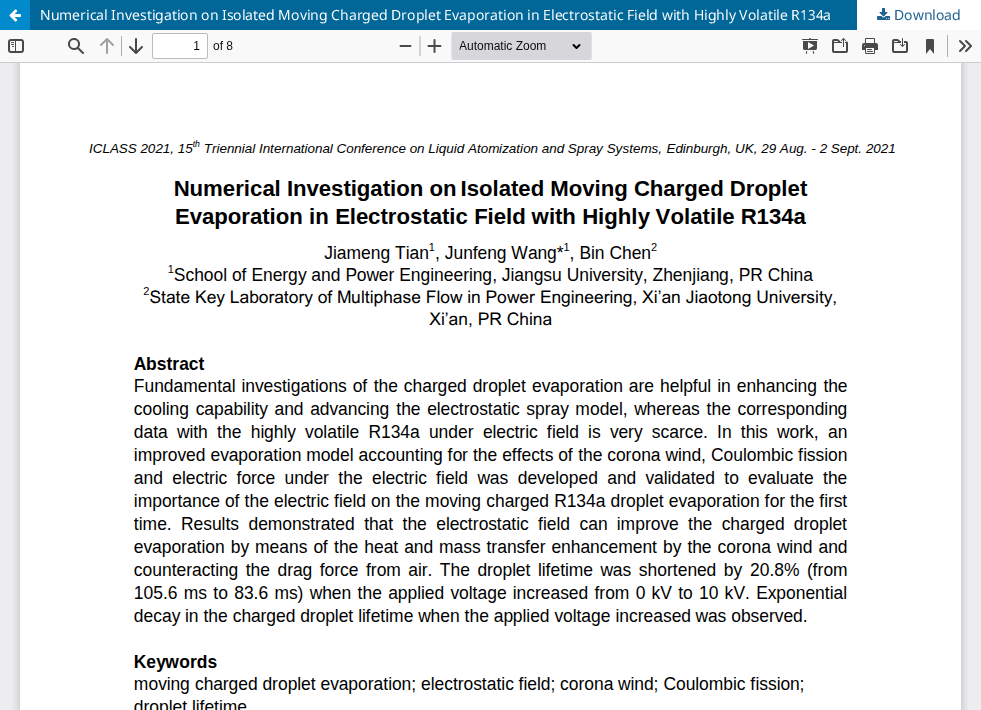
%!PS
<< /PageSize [981 710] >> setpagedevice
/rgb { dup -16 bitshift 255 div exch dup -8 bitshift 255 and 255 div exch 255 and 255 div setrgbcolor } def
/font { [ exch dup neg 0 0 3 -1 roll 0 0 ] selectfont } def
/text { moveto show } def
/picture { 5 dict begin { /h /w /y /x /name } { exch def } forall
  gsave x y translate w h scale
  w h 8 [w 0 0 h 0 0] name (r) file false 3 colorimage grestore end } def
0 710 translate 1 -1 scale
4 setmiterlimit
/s1 { /NotoSans-Regular 14 font 16#FFFFFF rgb } def
/s2 { /NotoSans-Regular 14 font 16#206390 rgb } def
16#FFFFFF rgb
0 0 981 710 rectfill
16#006798 rgb
30 0 827 30 rectfill
16#008ACB rgb
0 0 30 30 rectfill
(pic1.raw) 9 9 12 13 picture
s1
(Numerical Investigation on Isolated Moving Charged Droplet Evaporation in Electrostatic Field with Highly Volatile R134a) 40 20 text
(pic2.raw) 877 8 13 12 picture
s2
(Download) 894 20 text
(pic3.raw) 0 30 981 680 picture
showpage
